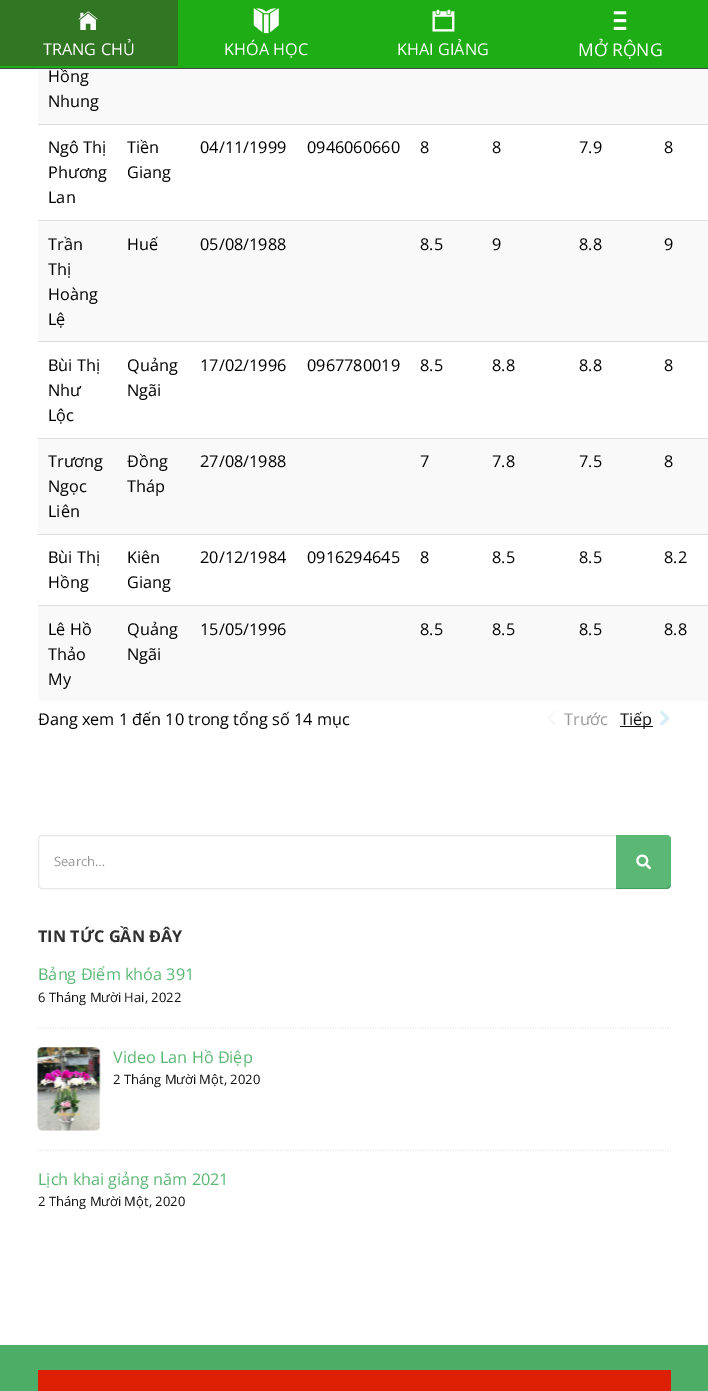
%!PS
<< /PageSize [708 1391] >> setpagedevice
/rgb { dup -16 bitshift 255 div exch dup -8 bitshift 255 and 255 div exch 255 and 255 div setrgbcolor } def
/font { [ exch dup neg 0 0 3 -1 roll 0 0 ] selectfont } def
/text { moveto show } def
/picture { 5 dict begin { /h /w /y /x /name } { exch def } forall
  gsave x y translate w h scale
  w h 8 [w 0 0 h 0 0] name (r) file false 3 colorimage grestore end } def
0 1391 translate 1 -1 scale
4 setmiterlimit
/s1 { /OpenSans-Regular 16.25 font 16#000000 rgb } def
/s2 { /OpenSans-Regular 16.25 font 16#FFFFFF rgb } def
/s3 { /OpenSans-Regular 17.5 font 16#FFFFFF rgb } def
/s4 { /OpenSans-Regular 16.25 font 16#999999 rgb } def
/s5 { /OpenSans-Regular 16.25 font 16#111111 rgb } def
/s6 { /OpenSans-Regular 13 font 16#999999 rgb } def
/s7 { /OpenSans-Bold 16.25 font 16#313131 rgb } def
/s8 { /OpenSans-Regular 16.25 font 16#5BB774 rgb } def
/s9 { /OpenSans-Regular 13 font 16#111111 rgb } def
16#FFFFFF rgb
0 0 708 1391 rectfill
16#1EAD14 rgb
0 0 708 68 rectfill
16#F9F9F9 rgb
38 69 670 55 rectfill
s1
(Hồng) 48 82 text
16#43494B rgb
0 68 708 1 rectfill
16#317622 rgb
0 0 178 66 rectfill
(pic1.raw) 78 11 20 19 picture
s2
(TRANG CHỦ) 43 55 text
(pic2.raw) 253 8 26 26 picture
(KHÓA HỌC) 224 55 text
(pic3.raw) 432 9 23 23 picture
(KHAI GIẢNG) 397 55 text
(pic4.raw) 613 11 14 19 picture
s3
(MỞ RỘNG) 578 56 text
s1
(Nhung) 48 107 text
(Ngô Thị) 48 153 text
(Phương) 48 178 text
(Lan) 48 203 text
(Tiền) 127 153 text
(Giang) 127 178 text
(04/11/1999) 200 153 text
(0946060660) 307 153 text
(8) 420 153 text
(8) 492 153 text
(7.9) 579 153 text
16#DDDDDD rgb
38 124 670 1 rectfill
s1
(8) 664 153 text
16#F9F9F9 rgb
38 221 670 120 rectfill
s1
(Trần) 48 250 text
(Thị) 48 275 text
(Hoàng) 48 300 text
(Lệ) 48 325 text
(Huế) 127 250 text
(05/08/1988) 200 250 text
(8.5) 420 250 text
(9) 492 250 text
(8.8) 579 250 text
16#DDDDDD rgb
38 220 670 1 rectfill
s1
(9) 664 250 text
(Bùi Thị) 48 371 text
(Như) 48 396 text
(Lộc) 48 421 text
(Quảng) 127 371 text
(Ngãi) 127 396 text
(17/02/1996) 200 371 text
(0967780019) 307 371 text
(8.5) 420 371 text
(8.8) 492 371 text
(8.8) 579 371 text
16#DDDDDD rgb
38 341 670 1 rectfill
s1
(8) 664 371 text
16#F9F9F9 rgb
38 439 670 95 rectfill
s1
(Trương) 48 467 text
(Ngọc) 48 492 text
(Liên) 48 517 text
(Đồng) 127 467 text
(Tháp) 127 492 text
(27/08/1988) 200 467 text
(7) 420 467 text
(7.8) 492 467 text
(7.5) 579 467 text
16#DDDDDD rgb
38 438 670 1 rectfill
s1
(8) 664 467 text
(Bùi Thị) 48 563 text
(Hồng) 48 588 text
(Kiên) 127 563 text
(Giang) 127 588 text
(20/12/1984) 200 563 text
(0916294645) 307 563 text
(8) 420 563 text
(8.5) 492 563 text
(8.5) 579 563 text
16#DDDDDD rgb
38 534 670 1 rectfill
s1
(8.2) 664 563 text
16#F9F9F9 rgb
38 606 670 95 rectfill
s1
(Lê Hồ) 48 635 text
(Thảo) 48 660 text
(My) 48 685 text
(Quảng) 127 635 text
(Ngãi) 127 660 text
(15/05/1996) 200 635 text
(8.5) 420 635 text
(8.5) 492 635 text
(8.5) 579 635 text
16#DDDDDD rgb
38 605 670 1 rectfill
s1
(8.8) 664 635 text
(Đang xem 1 đến 10 trong tổng số 14 mục) 38 725 text
(pic5.raw) 547 711 9 14 picture
s4
(Trước) 564 725 text
16#111111 rgb
620 726 33 1 rectfill
(Tiếp) 620 725 text
(pic6.raw) 660 710 10 16 picture
16#E8E8E8 rgb
42 835.5 moveto 617.5 835.5 lineto 617.5 888.5 lineto 42 888.5 lineto 40 888.5 38.5 887 38.5 885 curveto 38.5 839 lineto 38.5 837 40 835.5 42 835.5 curveto closepath stroke
s6
(Search…) 54 866 text
16#5BB774 rgb
616 835 moveto 666 835 lineto 669 835 671 837 671 840 curveto 671 884 lineto 671 887 669 889 666 889 curveto 616 889 lineto closepath fill
618 836 moveto 667 836 lineto 669 837 lineto 670 837 lineto 669 836 668 835 666 835 curveto 616 835 lineto 618 837 lineto closepath 670 837 moveto 671 837 671 839 671 840 curveto 671 884 lineto 671 885 671 887 670 887 curveto 669 886 lineto 670 884 lineto 670 840 lineto 669 837 lineto closepath fill
16#459B5C rgb
670 887 moveto 668 889 lineto 616 889 lineto 618 887 lineto 618 888 lineto 667 888 lineto 669 886 lineto closepath fill
16#5BB774 rgb
616 889 moveto 618 887 lineto 618 837 lineto 616 835 lineto closepath fill
(pic7.raw) 636 854 15 16 picture
gsave
38 924 633 371 rectclip
s7
(TIN TỨC GẦN ĐÂY) 38 942 text
grestore
s8
(Bảng Điểm khóa 391) 38 980 text
s9
(6 Tháng Mười Hai, 2022) 38 1002 text
16#ECECEC rgb
1.2 setlinewidth
[1.25 1.25] 0 setdash
37.5 1028 moveto 671 1028 lineto stroke
(pic8.raw) 37 1047 64 84 picture
s8
(Video Lan Hồ Điệp) 113 1063 text
s9
(2 Tháng Mười Một, 2020) 113 1084 text
16#ECECEC rgb
37.5 1150.5 moveto 671 1150.5 lineto stroke
s8
(Lịch khai giảng năm 2021) 38 1185 text
s9
(2 Tháng Mười Một, 2020) 38 1206 text
16#4CAD67 rgb
0 1345 708 46 rectfill
16#DD2004 rgb
38 1370 633 21 rectfill
showpage
